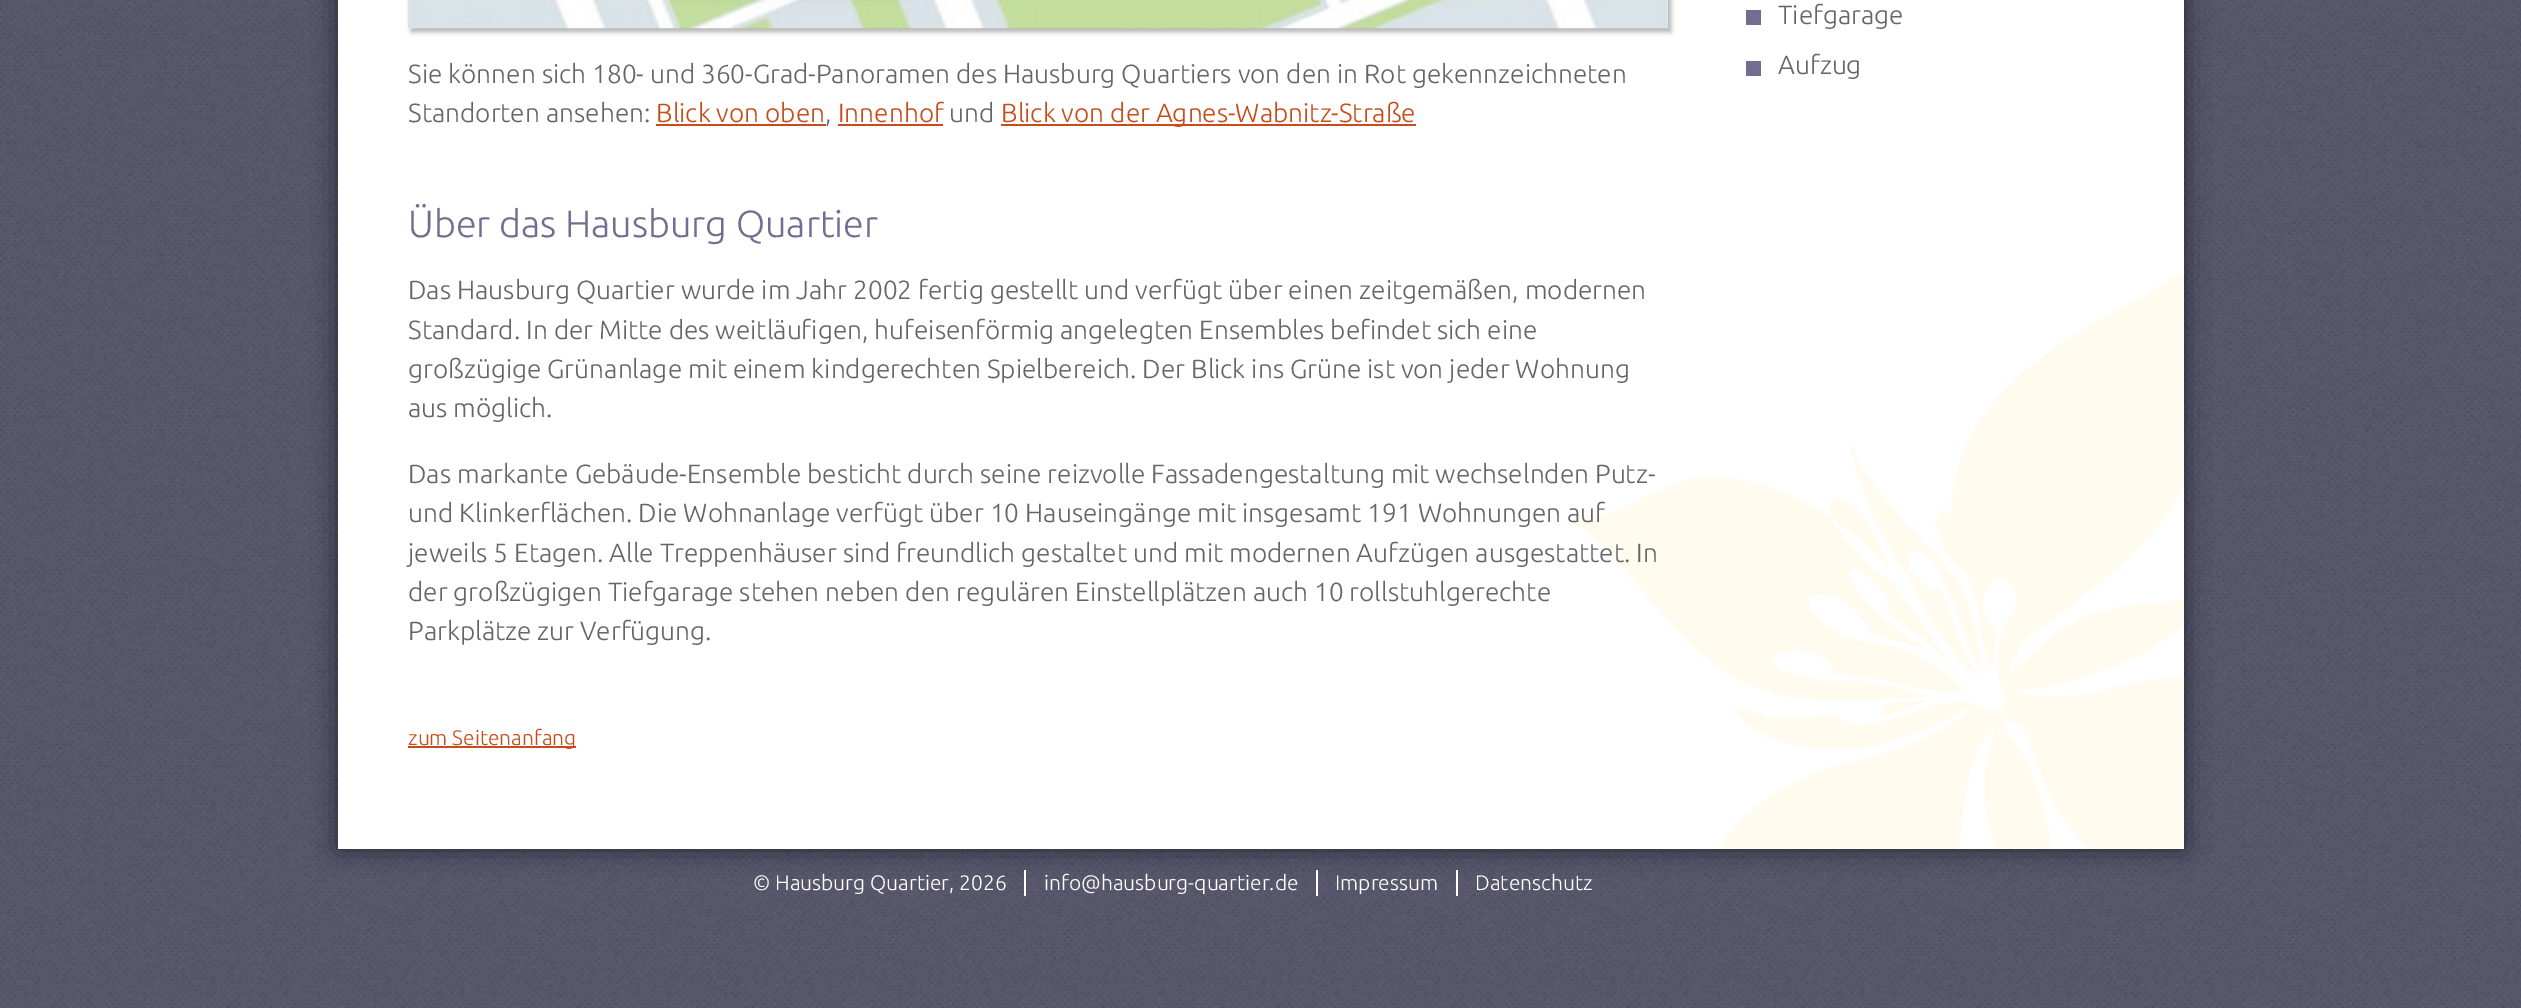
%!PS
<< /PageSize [2521 1008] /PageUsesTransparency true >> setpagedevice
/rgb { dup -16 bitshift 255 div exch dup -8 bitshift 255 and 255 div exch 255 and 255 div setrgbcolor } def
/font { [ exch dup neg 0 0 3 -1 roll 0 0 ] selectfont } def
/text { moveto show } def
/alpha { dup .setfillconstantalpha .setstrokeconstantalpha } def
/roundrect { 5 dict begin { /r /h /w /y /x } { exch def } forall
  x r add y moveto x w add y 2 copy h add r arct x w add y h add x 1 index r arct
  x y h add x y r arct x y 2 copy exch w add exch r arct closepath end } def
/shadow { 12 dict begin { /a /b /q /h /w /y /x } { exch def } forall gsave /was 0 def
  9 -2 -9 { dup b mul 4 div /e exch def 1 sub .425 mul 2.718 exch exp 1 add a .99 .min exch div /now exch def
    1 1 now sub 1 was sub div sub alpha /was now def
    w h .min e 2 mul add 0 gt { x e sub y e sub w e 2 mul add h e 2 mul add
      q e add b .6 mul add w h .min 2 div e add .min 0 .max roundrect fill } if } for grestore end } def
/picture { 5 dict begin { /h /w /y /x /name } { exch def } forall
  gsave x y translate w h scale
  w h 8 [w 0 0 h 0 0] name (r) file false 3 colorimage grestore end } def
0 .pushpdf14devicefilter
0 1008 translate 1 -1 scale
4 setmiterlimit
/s1 { /Ubuntu-Light 26.25 font 16#666666 rgb } def
/s2 { /Ubuntu-Light 26.25 font 16#C64C1A rgb } def
/s3 { /Ubuntu-Light 37.75 font 16#716F91 rgb } def
/s4 { /Ubuntu-Light 21 font 16#C64C1A rgb } def
/s5 { /Ubuntu-Light 21 font 16#FFFFFF rgb } def
16#FFFFFF rgb
0 0 2521 1008 rectfill
(pic1.raw) 0 0 2521 1008 picture
16#000000 rgb
338 -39 1846 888 0 13 0.6 shadow
16#FFFFFF rgb
338 0 1846 849 rectfill
(pic2.raw) 1566 271 618 578 picture
16#716F91 rgb
1746 10 15 15 rectfill
s1
(Tiefgarage) 1778 24 text
16#716F91 rgb
1746 61 15 15 rectfill
s1
(Aufzug) 1778 74 text
16#000000 rgb
411 -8 1260 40 0 2.5 0.3 shadow
(pic3.raw) 407 0 1261 29 picture
s1
(Sie können sich 180- und 360-Grad-Panoramen des Hausburg Quartiers von den in Rot gekennzeichneten) 408 83 text
(Standorten ansehen:) 408 122 text
s2
(Blick von oben) 656 122 text
656 124 170 2 rectfill
s1
(,) 825 122 text
s2
(Innenhof) 838 122 text
838 124 105 2 rectfill
s1
(und) 949 122 text
16#C64C1A rgb
1001 124 415 2 rectfill
(Blick von der Agnes-Wabnitz-Straße) 1001 122 text
s3
(Über das Hausburg Quartier) 408 237 text
s1
(Das Hausburg Quartier wurde im Jahr 2002 fertig gestellt und verfügt über einen zeitgemäßen, modernen) 408 299 text
(Standard. In der Mitte des weitläufigen, hufeisenförmig angelegten Ensembles befindet sich eine) 408 339 text
(großzügige Grünanlage mit einem kindgerechten Spielbereich. Der Blick ins Grüne ist von jeder Wohnung) 408 378 text
(aus möglich.) 408 417 text
(Das markante Gebäude-Ensemble besticht durch seine reizvolle Fassadengestaltung mit wechselnden Putz-) 408 483 text
(und Klinkerflächen. Die Wohnanlage verfügt über 10 Hauseingänge mit insgesamt 191 Wohnungen auf) 408 522 text
(jeweils 5 Etagen. Alle Treppenhäuser sind freundlich gestaltet und mit modernen Aufzügen ausgestattet. In) 408 562 text
(der großzügigen Tiefgarage stehen neben den regulären Einstellplätzen auch 10 rollstuhlgerechte) 408 601 text
(Parkplätze zur Verfügung.) 408 640 text
16#C64C1A rgb
408 746 168 2 rectfill
s4
(zum Seitenanfang) 408 745 text
16#FFFFFF rgb
1024 870 2 26 rectfill
(© Hausburg Quartier, 2026) 753 890 text
1316 870 2 26 rectfill
(info@hausburg-quartier.de) 1044 890 text
1456 870 2 26 rectfill
(Impressum) 1335 890 text
(Datenschutz) 1475 890 text
.poppdf14devicefilter showpage
